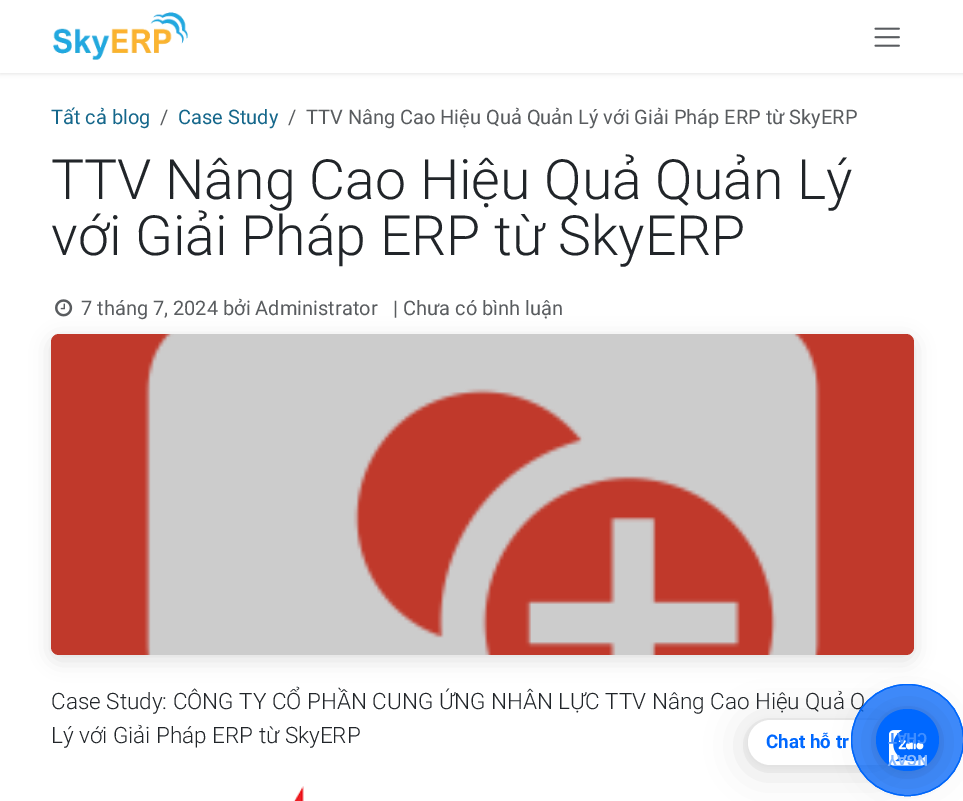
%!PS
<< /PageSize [963 801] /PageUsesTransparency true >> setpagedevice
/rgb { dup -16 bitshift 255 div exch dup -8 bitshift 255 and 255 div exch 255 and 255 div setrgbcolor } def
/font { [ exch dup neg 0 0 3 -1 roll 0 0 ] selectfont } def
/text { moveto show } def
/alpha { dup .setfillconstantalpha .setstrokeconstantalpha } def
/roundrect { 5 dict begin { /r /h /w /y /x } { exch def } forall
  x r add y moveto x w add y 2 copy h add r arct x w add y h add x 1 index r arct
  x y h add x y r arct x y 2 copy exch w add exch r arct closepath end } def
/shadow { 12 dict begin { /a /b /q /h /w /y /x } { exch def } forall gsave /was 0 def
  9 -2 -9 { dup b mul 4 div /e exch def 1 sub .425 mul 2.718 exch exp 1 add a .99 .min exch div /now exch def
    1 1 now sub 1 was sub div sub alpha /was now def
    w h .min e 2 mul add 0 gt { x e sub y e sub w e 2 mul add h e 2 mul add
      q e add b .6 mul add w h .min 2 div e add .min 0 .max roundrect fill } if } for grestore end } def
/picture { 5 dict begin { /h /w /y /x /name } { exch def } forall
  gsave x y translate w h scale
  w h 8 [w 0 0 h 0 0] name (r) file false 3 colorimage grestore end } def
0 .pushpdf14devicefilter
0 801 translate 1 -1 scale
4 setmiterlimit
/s1 { /Roboto-Regular 20 font 16#15678B rgb } def
/s2 { /Roboto-Regular 20 font 16#595C5F rgb } def
/s3 { /Roboto-Light 55.5 font 16#212529 rgb } def
/s4 { /Roboto-Light 22.5 font 16#212529 rgb } def
/s5 { /Roboto-Bold 18.75 font 16#0068FF rgb } def
16#FFFFFF rgb
0 0 963 801 rectfill
16#000000 rgb
0 1 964 73 0 2 0.1 shadow
16#FFFFFF rgb
0 0 963 73 rectfill
(pic1.raw) 53 12 135 48 picture
(pic2.raw) 874 27 26 20 picture
s1
(Tất cả blog) 51 124 text
s2
(/) 160 124 text
s1
(Case Study) 178 124 text
s2
(/) 288 124 text
(TTV Nâng Cao Hiệu Quả Quản Lý với Giải Pháp ERP từ SkyERP) 306 124 text
s3
(TTV Nâng Cao Hiệu Quả Quản Lý) 51 199 text
(với Giải Pháp ERP từ SkyERP) 51 255 text
(pic3.raw) 55 299 18 18 picture
s2
(7 tháng 7, 2024 bởi Administrator) 81 315 text
(| Chưa có bình luận) 393 315 text
16#000000 rgb
51 339 863 321 8 10 0.12 shadow
16#C0392B rgb
51 334 863 321 8 roundrect fill
(pic4.raw) 144 334 677 321 picture
s4
(Case Study: CÔNG TY CỔ PHẦN CUNG ỨNG NHÂN LỰC TTV Nâng Cao Hiệu Quả Q) 51 709 text
(Lý với Giải Pháp ERP từ SkyERP) 51 743 text
(pic5.raw) 293 786 11 15 picture
16#000000 rgb
748 723 143 45 22.5 20 0.16 shadow
748 721 143 45 22.5 4 0.06 shadow
16#FFFFFF rgb
770.5 720 moveto 891 720 lineto 891 765 lineto 770.5 765 lineto 758 765 748 755 748 742.5 curveto 748 730 758 720 770.5 720 curveto closepath fill
s5
(Chat hỗ tr) 766 748 text
0.5 alpha
851.5 684.5 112 111 55.5 roundrect fill
1 alpha
851.5 684.5 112 111 55.5 roundrect stroke
0.5 alpha
851.5 684.5 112 111 55.5 roundrect fill
1 alpha
851.5 684.5 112 111 55.5 roundrect stroke
16#000000 rgb
876 711 63 63 31.5 20 0.16 shadow
876 710 63 63 31.5 4 0.06 shadow
16#0068FF rgb
876 709 63 62 31 roundrect fill
(pic6.raw) 889 730 37 36 picture
/Roboto-Bold 15 font
16#408EFF rgb
gsave 927 733 translate 180 rotate 0 0 moveto (CHAT) show grestore
16#88B9FF rgb
gsave 928 755 translate 180 rotate 0 0 moveto (NGAY) show grestore
.poppdf14devicefilter showpage
